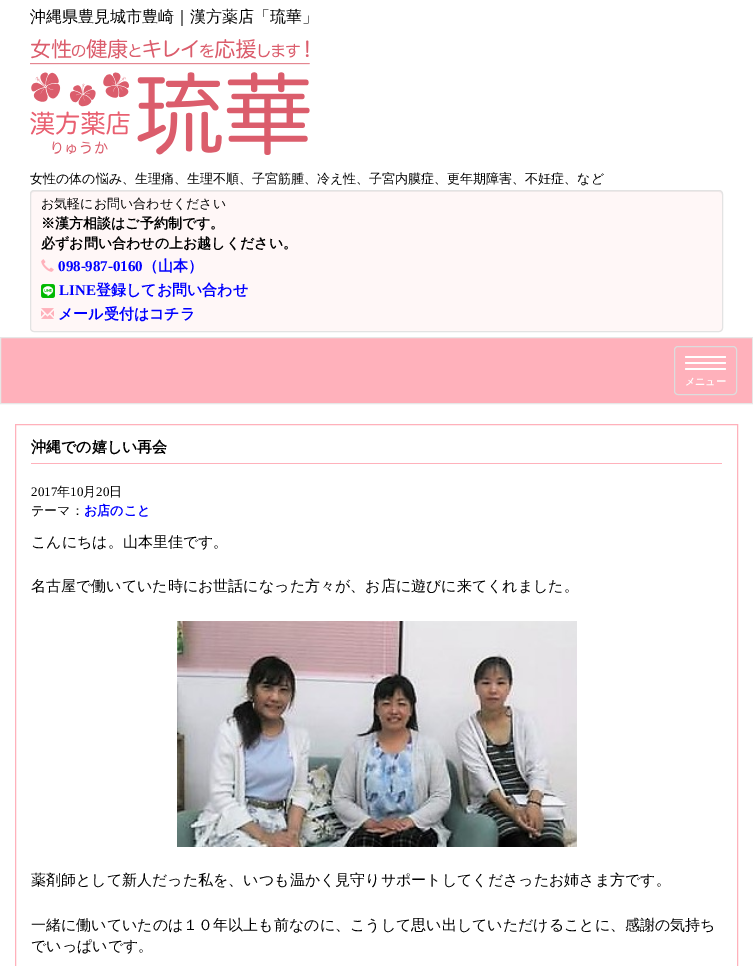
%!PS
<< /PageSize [753 966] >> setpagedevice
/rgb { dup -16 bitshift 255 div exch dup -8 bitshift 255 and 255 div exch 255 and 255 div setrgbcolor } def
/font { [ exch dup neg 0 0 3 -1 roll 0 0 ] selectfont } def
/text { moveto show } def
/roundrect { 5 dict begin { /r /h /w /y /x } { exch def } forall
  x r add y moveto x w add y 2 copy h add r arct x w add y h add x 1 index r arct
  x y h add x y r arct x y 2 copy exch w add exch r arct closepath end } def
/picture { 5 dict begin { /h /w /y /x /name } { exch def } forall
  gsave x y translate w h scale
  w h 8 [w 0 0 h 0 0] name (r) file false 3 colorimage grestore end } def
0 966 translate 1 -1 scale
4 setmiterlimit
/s1 { /WenQuanYiZenHei-Medium 16 font 16#000000 rgb } def
/s2 { /WenQuanYiZenHei-Medium 13 font 16#000000 rgb } def
/s3 { /WenQuanYiZenHei-Bold 14 font 16#000000 rgb } def
/s4 { /LiberationSerif-Bold 15 font 16#0000FF rgb } def
/s5 { /WenQuanYiZenHei-Bold 15 font 16#0000FF rgb } def
/s6 { /WenQuanYiZenHei-Bold 10 font 16#FFFFFF rgb } def
/s7 { /WenQuanYiZenHei-Bold 15 font 16#000000 rgb } def
/s8 { /LiberationSerif-Regular 13 font 16#000000 rgb } def
/s9 { /WenQuanYiZenHei-Bold 13 font 16#0000FF rgb } def
/s10 { /WenQuanYiZenHei-Medium 15 font 16#000000 rgb } def
16#FFFFFF rgb
0 0 753 966 rectfill
s1
(沖縄県豊見城市豊崎｜漢方薬店「琉華」) 30 22 text
(pic1.raw) 30 39 280 116 picture
s2
(女性の体の悩み、生理痛、生理不順、子宮筋腫、冷え性、子宮内膜症、更年期障害、不妊症、など) 30 183 text
16#FFF7F7 rgb
30 190 693 142 4 roundrect fill
16#F2EBEB rgb
34 192 moveto 719 192 lineto 721 192 722 193 722 195 curveto 722 194 lineto 722 192 721 191 719 191 curveto 34 191 lineto 32 191 31 192 31 194 curveto 31 195 lineto 31 193 32 192 34 192 curveto closepath fill
16#E3E3E3 rgb
30.5 190.5 692 141 3.5 roundrect stroke
s2
(お気軽にお問い合わせください) 41 208 text
s3
(※漢方相談はご予約制です。) 41 228 text
(必ずお問い合わせの上お越しください。) 41 248 text
(pic2.raw) 41 259 13 13 picture
s4
(098-987-0160) 58 271 text
s5
(（山本）) 143 271 text
(pic3.raw) 41 284 14 14 picture
s4
(LINE) 59 295 text
s5
(登録してお問い合わせ) 96 295 text
(pic4.raw) 41 308 13 11 picture
(メール受付はコチラ) 58 319 text
16#FFB1BB rgb
0.5 337.5 moveto 752.5 337.5 lineto 752.5 403.5 lineto 0.5 403.5 lineto closepath gsave fill grestore
16#E7E7E7 rgb
stroke
16#DDDDDD rgb
674.5 346.5 62 48 3.5 roundrect stroke
16#FFFFFF rgb
685 356 41 2 1 roundrect fill
685 362 41 2 1 roundrect fill
685 368 41 2 1 roundrect fill
s6
(メニュー) 685 385 text
16#FFB1BB rgb
15.5 424.5 722 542 rectstroke
31 463 691 1 rectfill
s7
(沖縄での嬉しい再会) 31 452 text
s8
(2017) 31 496 text
s2
(年) 57 496 text
s8
(10) 70 496 text
s2
(月) 83 496 text
s8
(20) 96 496 text
s2
(日) 109 496 text
(テーマ：) 31 515 text
s9
(お店のこと) 84 515 text
s10
(こんにちは。山本里佳です。) 31 547 text
(名古屋で働いていた時にお世話になった方々が、お店に遊びに来てくれました。) 31 591 text
(pic5.raw) 177 621 400 226 picture
(薬剤師として新人だった私を、いつも温かく見守りサポートしてくださったお姉さま方です。) 31 885 text
(一緒に働いていたのは１０年以上も前なのに、こうして思い出していただけることに、感謝の気持ち) 31 930 text
(でいっぱいです。) 31 951 text
showpage
